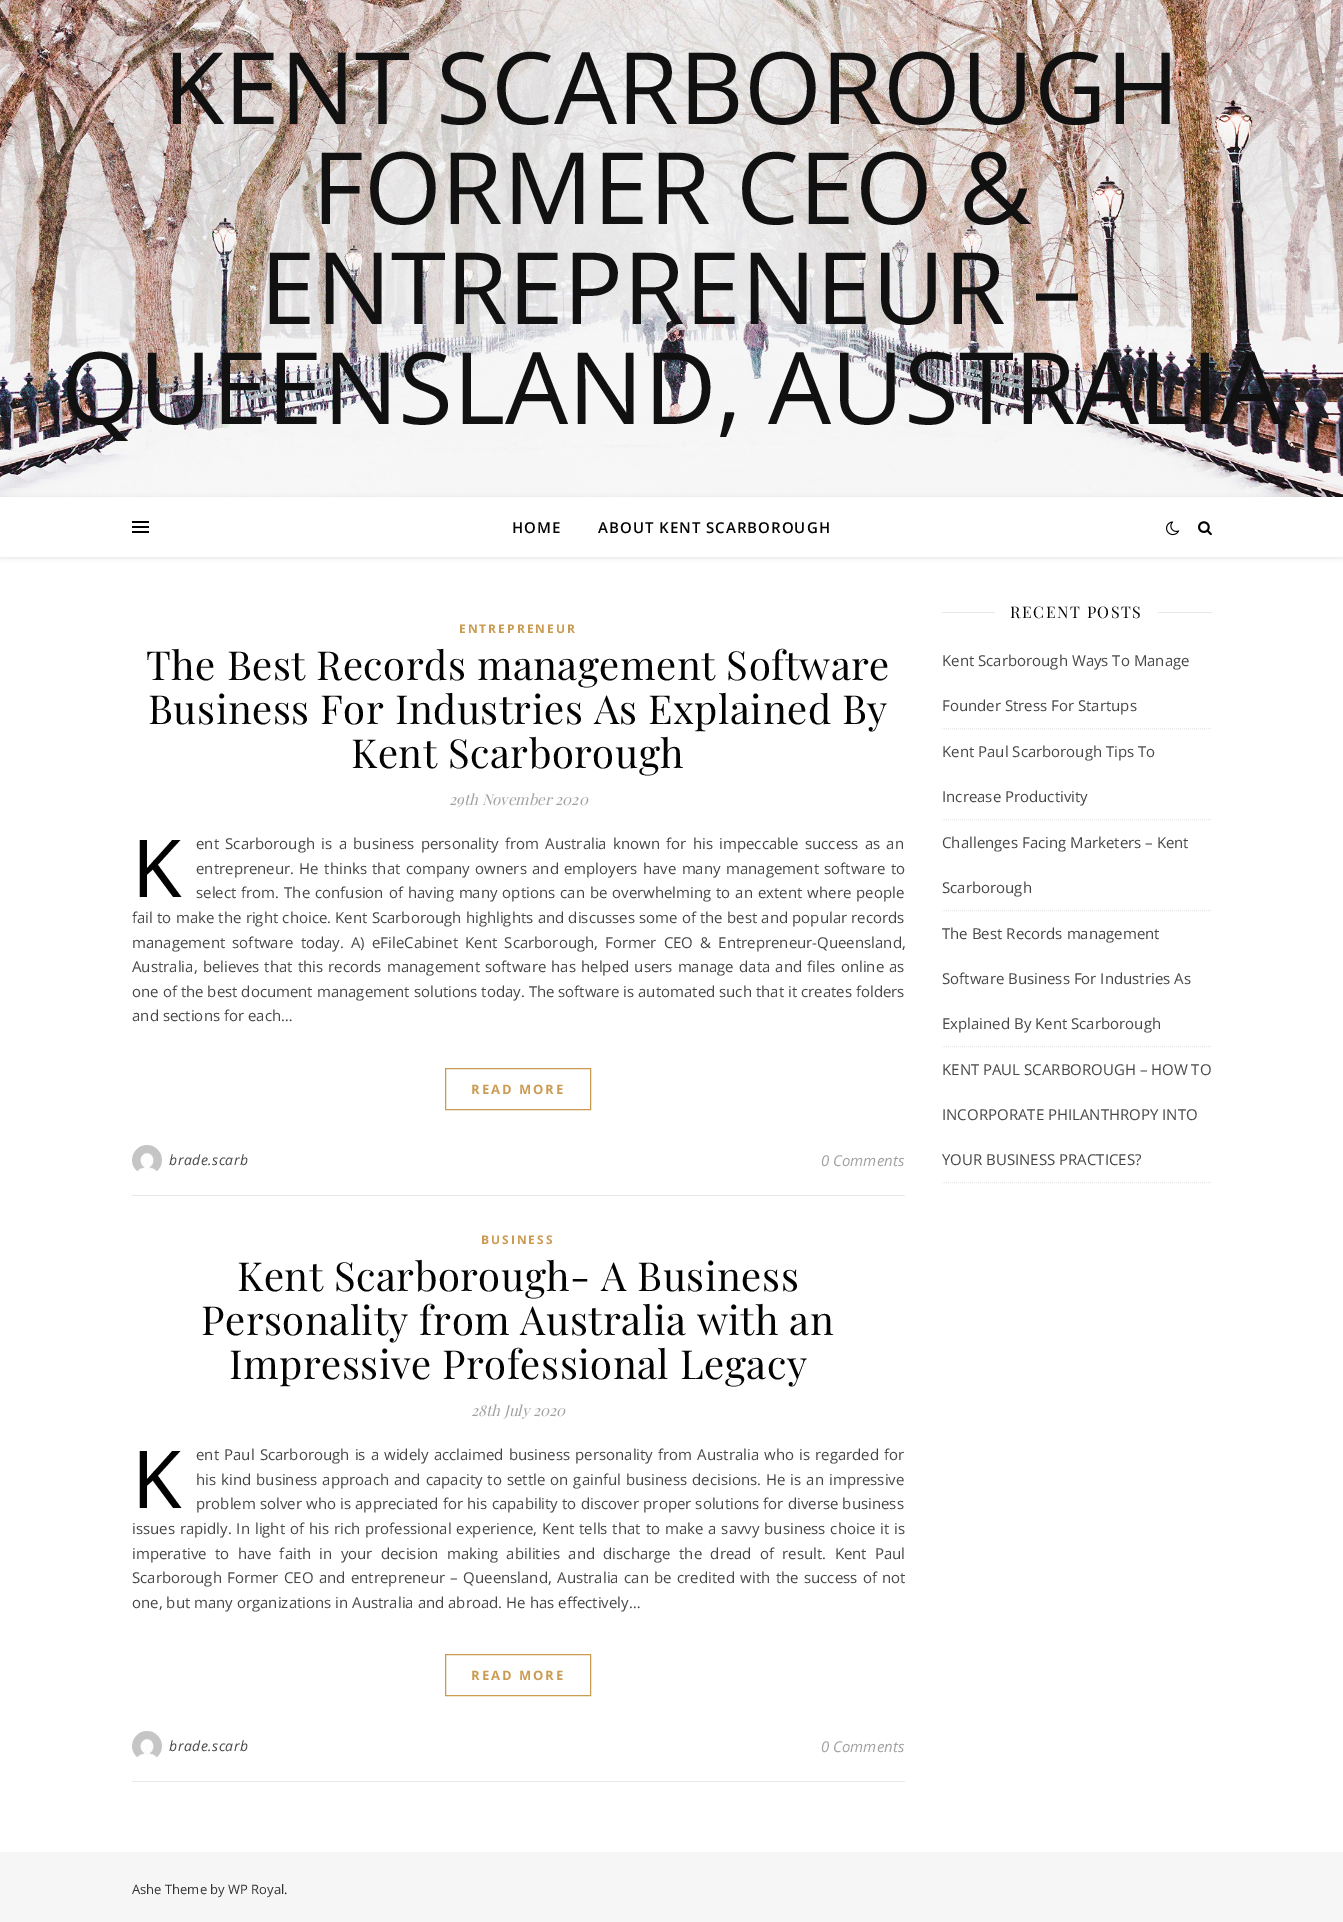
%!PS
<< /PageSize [1343 1922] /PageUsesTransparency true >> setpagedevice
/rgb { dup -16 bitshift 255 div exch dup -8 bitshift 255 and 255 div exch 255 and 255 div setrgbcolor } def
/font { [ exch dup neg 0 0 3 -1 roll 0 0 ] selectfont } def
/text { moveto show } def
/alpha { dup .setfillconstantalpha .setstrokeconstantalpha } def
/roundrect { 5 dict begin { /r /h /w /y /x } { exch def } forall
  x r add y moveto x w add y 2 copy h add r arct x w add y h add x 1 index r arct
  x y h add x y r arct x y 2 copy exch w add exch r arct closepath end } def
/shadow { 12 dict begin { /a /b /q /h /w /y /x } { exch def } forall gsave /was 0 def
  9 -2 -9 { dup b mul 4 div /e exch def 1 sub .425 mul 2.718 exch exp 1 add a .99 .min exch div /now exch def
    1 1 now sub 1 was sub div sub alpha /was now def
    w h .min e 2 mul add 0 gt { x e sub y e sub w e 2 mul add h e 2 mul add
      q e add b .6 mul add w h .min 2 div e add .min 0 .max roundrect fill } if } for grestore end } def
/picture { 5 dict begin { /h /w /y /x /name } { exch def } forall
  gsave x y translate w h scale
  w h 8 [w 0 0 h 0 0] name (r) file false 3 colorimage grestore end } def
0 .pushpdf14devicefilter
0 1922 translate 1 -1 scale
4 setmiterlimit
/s1 { /OpenSans-Regular 100 font 16#111111 rgb } def
/s2 { /PlayfairDisplay-Italic 15 font 16#A1A1A1 rgb } def
/s3 { /NotoSans-Regular 80 font 16#030303 rgb } def
/s4 { /OpenSans-Regular 15 font 16#464646 rgb } def
/s5 { /OpenSans-Italic 15 font 16#A1A1A1 rgb } def
/s6 { /OpenSans-Regular 13 font 16#333333 rgb } def
16#FFFFFF rgb
0 0 1343 1922 rectfill
(pic1.raw) 0 0 1343 497 picture
s1
(KENT SCARBOROUGH) 163 124 text
(FORMER CEO &) 312 224 text
(ENTREPRENEUR –) 260 324 text
(QUEENSLAND, AUSTRALIA) 61 424 text
gsave
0 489 moveto 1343 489 lineto 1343 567 lineto 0 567 lineto closepath 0 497 moveto 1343 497 lineto 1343 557 lineto 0 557 lineto closepath eoclip newpath
16#000000 rgb
0 498 1343 60 0 2.5 0.1 shadow
grestore
16#000000 rgb
132 521 17 2 rectfill
132 526 17 2 rectfill
132 531 17 2 rectfill
/OpenSans-SemiBold 15 font
16#030303 rgb
512 533 moveto 1 0 (HOME) ashow
598 533 moveto 1 0 (ABOUT KENT SCARBOROUGH) ashow
(pic2.raw) 1166 521 14 15 picture
(pic3.raw) 1198 521 14 15 picture
/OpenSans-Bold 12 font
16#CA9B52 rgb
459 633 moveto 2 0 (ENTREPRENEUR) ashow
/PlayfairDisplay-Regular 40 font
16#030303 rgb
146 680 moveto 0.5 0 (The Best Records management Software) ashow
148 724 moveto 0.5 0 (Business For Industries As Explained By) ashow
351 768 moveto 0.5 0 (Kent Scarborough) ashow
s2
(29th November 2020) 449 805 text
s3
(K) 132 897 text
/OpenSans-Regular 15 font
16#464646 rgb
196 849 moveto 2.4 0 32 (ent Scarborough is a business personality from Australia known for his impeccable success as an) widthshow
196 874 moveto 1.4 0 32 (entrepreneur. He thinks that company owners and employers have many management software to) widthshow
196 898 moveto 1 0 32 (select from. The confusion of having many options can be overwhelming to an extent where people) widthshow
132 923 moveto 0.3 0 32 (fail to make the right choice. Kent Scarborough highlights and discusses some of the best and popular records) widthshow
132 948 moveto 3.25 0 32 (management software today. A\) eFileCabinet Kent Scarborough, Former CEO & Entrepreneur-Queensland,) widthshow
132 972 moveto 1.25 0 32 (Australia, believes that this records management software has helped users manage data and files online as) widthshow
(one of the best document management solutions today. The software is automated such that it creates folders) 132 997 text
(and sections for each…) 132 1021 text
16#CA9B52 rgb
445.5 1068.5 145 41 rectstroke
/OpenSans-Bold 13 font
471 1094 moveto 2 0 (READ MORE) ashow
16#E8E8E8 rgb
132 1195 773 1 rectfill
(pic4.raw) 132 1145 30 28 picture
/OpenSans-Italic 14 font
16#464646 rgb
169 1165 moveto 0.5 0 (brade.scarb) ashow
s5
(0 Comments) 821 1166 text
/OpenSans-Bold 12 font
16#CA9B52 rgb
481 1244 moveto 2 0 (BUSINESS) ashow
/PlayfairDisplay-Regular 40 font
16#030303 rgb
237 1291 moveto 0.5 0 (Kent Scarborough- A Business) ashow
201 1335 moveto 0.5 0 (Personality from Australia with an) ashow
229 1379 moveto 0.5 0 (Impressive Professional Legacy) ashow
s2
(28th July 2020) 471 1416 text
s3
(K) 132 1508 text
/OpenSans-Regular 15 font
16#464646 rgb
196 1460 moveto 1.25 0 32 (ent Paul Scarborough is a widely acclaimed business personality from Australia who is regarded for) widthshow
196 1485 moveto 1.1 0 32 (his kind business approach and capacity to settle on gainful business decisions. He is an impressive) widthshow
196 1509 moveto 0.3 0 32 (problem solver who is appreciated for his capability to discover proper solutions for diverse business) widthshow
132 1534 moveto 1 0 32 (issues rapidly. In light of his rich professional experience, Kent tells that to make a savvy business choice it is) widthshow
132 1559 moveto 4.4 0 32 (imperative to have faith in your decision making abilities and discharge the dread of result. Kent Paul) widthshow
132 1583 moveto 1.5 0 32 (Scarborough Former CEO and entrepreneur – Queensland, Australia can be credited with the success of not) widthshow
(one, but many organizations in Australia and abroad. He has effectively…) 132 1608 text
16#CA9B52 rgb
445.5 1654.5 145 41 rectstroke
/OpenSans-Bold 13 font
471 1680 moveto 2 0 (READ MORE) ashow
16#E8E8E8 rgb
132 1781 773 1 rectfill
(pic4.raw) 132 1731 30 28 picture
/OpenSans-Italic 14 font
16#464646 rgb
169 1751 moveto 0.5 0 (brade.scarb) ashow
s5
(0 Comments) 821 1752 text
16#E8E8E8 rgb
942 612 53 1 rectfill
/PlayfairDisplay-Regular 16 font
16#030303 rgb
1010 618 moveto 1.5 0 (RECENT POSTS) ashow
16#E8E8E8 rgb
1158 612 54 1 rectfill
[1 1] 0 setdash
942 728.5 moveto 1212 728.5 lineto stroke
s4
(Kent Scarborough Ways To Manage) 942 666 text
(Founder Stress For Startups) 942 711 text
16#E8E8E8 rgb
942 819.5 moveto 1212 819.5 lineto stroke
s4
(Kent Paul Scarborough Tips To) 942 757 text
(Increase Productivity) 942 802 text
16#E8E8E8 rgb
942 910.5 moveto 1212 910.5 lineto stroke
s4
(Challenges Facing Marketers – Kent) 942 848 text
(Scarborough) 942 893 text
16#E8E8E8 rgb
942 1046.5 moveto 1212 1046.5 lineto stroke
s4
(The Best Records management) 942 939 text
(Software Business For Industries As) 942 984 text
(Explained By Kent Scarborough) 942 1029 text
16#E8E8E8 rgb
942 1182.5 moveto 1212 1182.5 lineto stroke
s4
(KENT PAUL SCARBOROUGH – HOW TO) 942 1075 text
(INCORPORATE PHILANTHROPY INTO) 942 1120 text
(YOUR BUSINESS PRACTICES?) 942 1165 text
16#F6F6F6 rgb
0 1852 1343 70 rectfill
s6
(Ashe Theme by WP Royal.) 132 1894 text
.poppdf14devicefilter showpage
